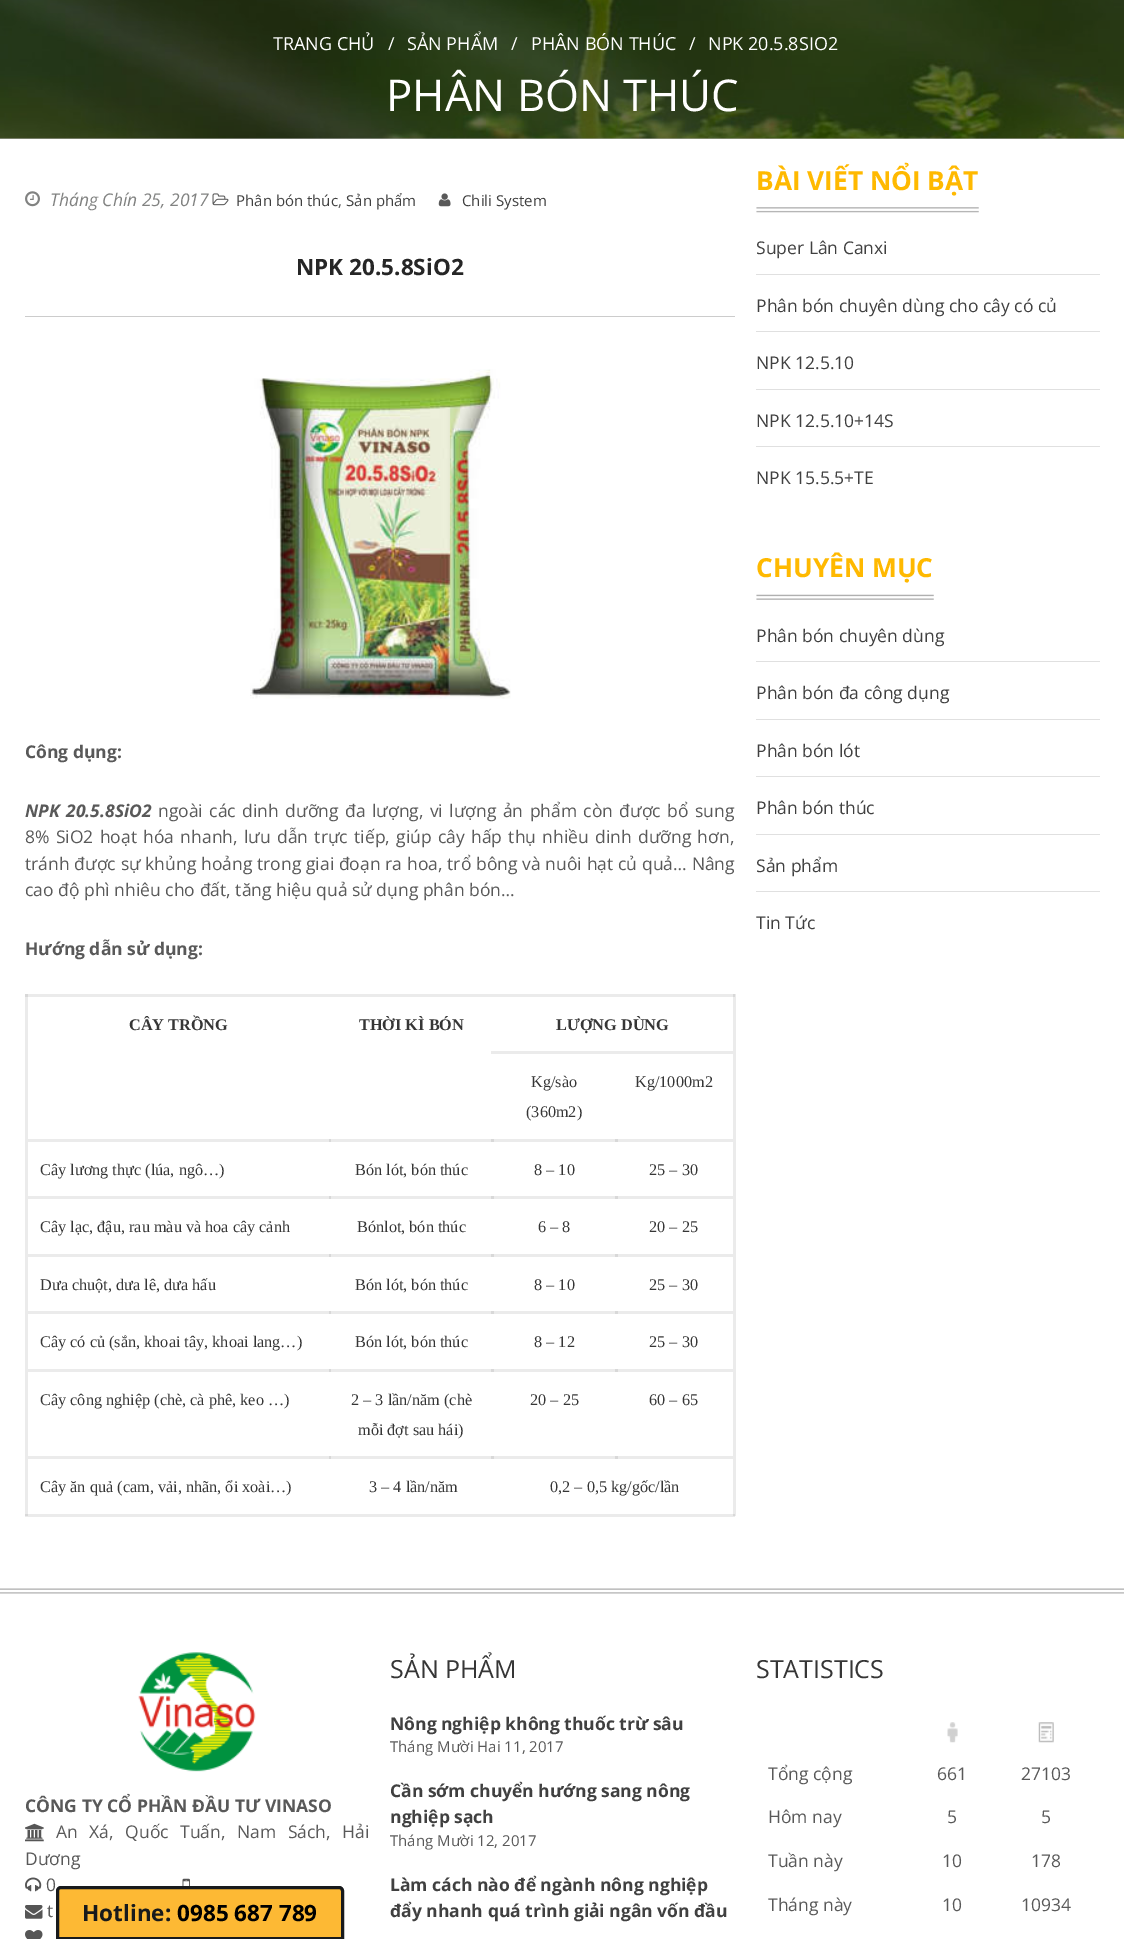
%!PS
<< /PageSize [1124 1939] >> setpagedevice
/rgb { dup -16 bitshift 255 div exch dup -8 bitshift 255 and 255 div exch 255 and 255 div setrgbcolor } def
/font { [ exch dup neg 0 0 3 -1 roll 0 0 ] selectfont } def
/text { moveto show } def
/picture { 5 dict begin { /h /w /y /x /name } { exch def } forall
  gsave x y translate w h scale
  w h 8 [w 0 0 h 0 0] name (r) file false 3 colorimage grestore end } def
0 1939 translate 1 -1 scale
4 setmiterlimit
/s1 { /OpenSans-Regular 18 font 16#FFFFFF rgb } def
/s2 { /OpenSans-Regular 43.75 font 16#FFFFFF rgb } def
/s3 { /OpenSans-Italic 17.5 font 16#818281 rgb } def
/s4 { /OpenSans-Regular 15 font 16#404040 rgb } def
/s5 { /OpenSans-Regular 15 font 16#595959 rgb } def
/s6 { /OpenSans-Bold 22.5 font 16#262626 rgb } def
/s7 { /OpenSans-Bold 17.5 font 16#595959 rgb } def
/s8 { /OpenSans-Regular 17.5 font 16#595959 rgb } def
/s9 { /LiberationSerif-Bold 16.25 font 16#363636 rgb } def
/s10 { /LiberationSerif-Regular 16.25 font 16#363636 rgb } def
/s11 { /OpenSans-Bold 26.25 font 16#FFB900 rgb } def
/s12 { /OpenSans-Regular 17.5 font 16#404040 rgb } def
/s13 { /OpenSans-Bold 22.5 font 16#181A1C rgb } def
/s14 { /OpenSans-Bold 22.5 font 16#000000 rgb } def
/s15 { /OpenSans-Regular 25 font 16#363636 rgb } def
/s16 { /OpenSans-Bold 17.5 font 16#404040 rgb } def
16#FFFFFF rgb
0 0 1124 1939 rectfill
16#B3B3B3 rgb
0 138 1124 1 rectfill
16#EBEBEB rgb
28 1139 705 3 rectfill
16#D8D8D8 rgb
329 1139 2 3 rectfill
491 1139 3 3 rectfill
16#EBEBEB rgb
28 1196 705 3 rectfill
16#D8D8D8 rgb
329 1196 2 3 rectfill
491 1196 3 3 rectfill
16#EBEBEB rgb
28 1254 705 3 rectfill
16#D8D8D8 rgb
329 1254 2 3 rectfill
491 1254 3 3 rectfill
16#EBEBEB rgb
28 1311 705 3 rectfill
16#D8D8D8 rgb
329 1311 2 3 rectfill
491 1311 3 3 rectfill
16#EBEBEB rgb
28 1369 705 3 rectfill
16#D8D8D8 rgb
329 1369 2 3 rectfill
491 1369 3 3 rectfill
16#EBEBEB rgb
28 1456 705 3 rectfill
16#D8D8D8 rgb
329 1456 2 3 rectfill
491 1456 3 3 rectfill
16#EBEBEB rgb
25 994 3 522 rectfill
25 1514 710 3 rectfill
16#D8D8D8 rgb
25 1514 3 2 rectfill
16#EBEBEB rgb
733 994 3 522 rectfill
16#D8D8D8 rgb
733 1514 2 2 rectfill
(pic1.raw) 0 0 1124 139 picture
s1
(TRANG CHỦ) 273 50 text
(/) 388 50 text
(SẢN PHẨM) 407 50 text
(/) 511 50 text
(PHÂN BÓN THÚC) 531 50 text
(/) 689 50 text
(NPK 20.5.8SIO2) 708 50 text
s2
(PHÂN BÓN THÚC) 386 111 text
(pic2.raw) 25 191 15 16 picture
s3
(Tháng Chín 25, 2017) 50 206 text
(pic3.raw) 212 193 17 13 picture
s4
(Phân bón thúc) 236 206 text
s5
(,) 338 206 text
s4
(Sản phẩm) 346 206 text
(pic4.raw) 438 193 13 14 picture
(Chili System) 462 206 text
s6
(NPK 20.5.8SiO2) 296 275 text
16#CCCCCC rgb
25 316 710 1 rectfill
(pic5.raw) 250 369 261 330 picture
s7
(Công dụng:) 25 758 text
/OpenSans-BoldItalic 17.5 font
25 817 moveto 2 0 32 (NPK 20.5.8SiO2) widthshow
/OpenSans-Regular 17.5 font
158 817 moveto 1.9 0 32 (ngoài các dinh dưỡng đa lượng, vi lượng ản phẩm còn được bổ sung) widthshow
25 843 moveto 1.75 0 32 (8% SiO2 hoạt hóa nhanh, lưu dẫn trực tiếp, giúp cây hấp thụ nhiều dinh dưỡng hơn,) widthshow
25 870 moveto 0.25 0 32 (tránh được sự khủng hoảng trong giai đoạn ra hoa, trổ bông và nuôi hạt củ quả… Nâng) widthshow
(cao độ phì nhiêu cho đất, tăng hiệu quả sử dụng phân bón…) 25 896 text
s7
(Hướng dẫn sử dụng:) 25 955 text
16#EBEBEB rgb
25 994 710 3 rectfill
16#D8D8D8 rgb
25 994 3 3 rectfill
733 994 2 3 rectfill
s9
(CÂY TRỒNG) 129 1030 text
(THỜI KÌ BÓN) 359 1030 text
16#EBEBEB rgb
491 1051 242 3 rectfill
s9
(LƯỢNG DÙNG) 556 1030 text
s10
(Kg/sào) 531 1087 text
(\(360m2\)) 526 1117 text
16#D8D8D8 rgb
615 1139 3 3 rectfill
s10
(Kg/1000m2) 635 1087 text
(Cây lương thực \(lúa, ngô…\)) 40 1175 text
(Bón lót, bón thúc) 355 1175 text
(8 – 10) 534 1175 text
16#D8D8D8 rgb
615 1196 3 3 rectfill
s10
(25 – 30) 649 1175 text
(Cây lạc, đậu, rau màu và hoa cây cảnh) 40 1232 text
(Bónlot, bón thúc) 357 1232 text
(6 – 8) 538 1232 text
16#D8D8D8 rgb
615 1254 3 3 rectfill
s10
(20 – 25) 649 1232 text
(Dưa chuột, dưa lê, dưa hấu) 40 1290 text
(Bón lót, bón thúc) 355 1290 text
(8 – 10) 534 1290 text
16#D8D8D8 rgb
615 1311 3 3 rectfill
s10
(25 – 30) 649 1290 text
(Cây có củ \(sắn, khoai tây, khoai lang…\)) 40 1347 text
(Bón lót, bón thúc) 355 1347 text
(8 – 12) 534 1347 text
16#D8D8D8 rgb
615 1369 3 3 rectfill
s10
(25 – 30) 649 1347 text
(Cây công nghiệp \(chè, cà phê, keo …\)) 40 1405 text
(2 – 3 lần/năm \(chè) 351 1405 text
(mỗi đợt sau hái\)) 358 1435 text
(20 – 25) 530 1405 text
16#D8D8D8 rgb
615 1456 3 3 rectfill
s10
(60 – 65) 649 1405 text
(Cây ăn quả \(cam, vải, nhãn, ổi xoài…\)) 40 1492 text
(3 – 4 lần/năm) 369 1492 text
(0,2 – 0,5 kg/gốc/lần) 550 1492 text
(pic6.raw) 756 207 223 6 picture
s11
(BÀI VIẾT NỔI BẬT) 756 190 text
16#E0E0E0 rgb
756 274 344 1 rectfill
s12
(Super Lân Canxi) 756 254 text
16#E0E0E0 rgb
756 331 344 1 rectfill
s12
(Phân bón chuyên dùng cho cây có củ) 756 312 text
16#E0E0E0 rgb
756 389 344 1 rectfill
s12
(NPK 12.5.10) 756 369 text
16#E0E0E0 rgb
756 446 344 1 rectfill
s12
(NPK 12.5.10+14S) 756 427 text
(NPK 15.5.5+TE) 756 484 text
(pic7.raw) 756 594 178 6 picture
s11
(CHUYÊN MỤC) 756 577 text
16#E0E0E0 rgb
756 661 344 1 rectfill
s12
(Phân bón chuyên dùng) 756 642 text
16#E0E0E0 rgb
756 719 344 1 rectfill
s12
(Phân bón đa công dụng) 756 699 text
16#E0E0E0 rgb
756 776 344 1 rectfill
s12
(Phân bón lót) 756 757 text
16#E0E0E0 rgb
756 834 344 1 rectfill
s12
(Phân bón thúc) 756 814 text
16#E0E0E0 rgb
756 891 344 1 rectfill
s12
(Sản phẩm) 756 872 text
(Tin Tức) 756 929 text
(pic8.raw) 0 1588 1124 6 picture
(pic9.raw) 138 1652 118 120 picture
s7
(CÔNG TY CỔ PHẦN ĐẦU TƯ VINASO) 25 1812 text
(pic10.raw) 25 1823 19 19 picture
/OpenSans-Regular 17.5 font
56 1838 moveto 7 0 32 (An Xá, Quốc Tuấn, Nam Sách, Hải) widthshow
(Dương) 25 1865 text
(pic11.raw) 25 1877 17 15 picture
(0) 46 1891 text
(pic12.raw) 182 1878 8 8 picture
(pic13.raw) 25 1905 18 14 picture
(t) 47 1917 text
(pic14.raw) 25 1930 18 9 picture
16#FDB934 rgb
61 1887.5 moveto 339 1887.5 lineto 341 1887.5 342.5 1889 342.5 1891 curveto 342.5 1938.5 lineto 57.5 1938.5 lineto 57.5 1891 lineto 57.5 1889 59 1887.5 61 1887.5 curveto closepath gsave fill grestore
16#181A1C rgb
3 setlinewidth
stroke
s13
(Hotline:) 82 1921 text
s14
(0985 687 789) 177 1921 text
s15
(SẢN PHẨM) 390 1678 text
s16
(Nông nghiệp không thuốc trừ sâu) 390 1730 text
s5
(Tháng Mười Hai 11, 2017) 390 1752 text
s16
(Cần sớm chuyển hướng sang nông) 390 1797 text
(nghiệp sạch) 390 1823 text
s5
(Tháng Mười 12, 2017) 390 1846 text
s16
(Làm cách nào để ngành nông nghiệp) 390 1891 text
(đẩy nhanh quá trình giải ngân vốn đầu) 390 1917 text
s15
(STATISTICS) 756 1678 text
(pic15.raw) 947 1722 11 21 picture
(pic16.raw) 1038 1722 16 21 picture
s8
(Tổng cộng) 768 1780 text
(661) 937 1780 text
(27103) 1021 1780 text
(Hôm nay) 768 1823 text
(5) 947 1823 text
(5) 1041 1823 text
(Tuần này) 768 1867 text
(10) 942 1867 text
(178) 1031 1867 text
(Tháng này) 768 1911 text
(10) 942 1911 text
(10934) 1021 1911 text
showpage
